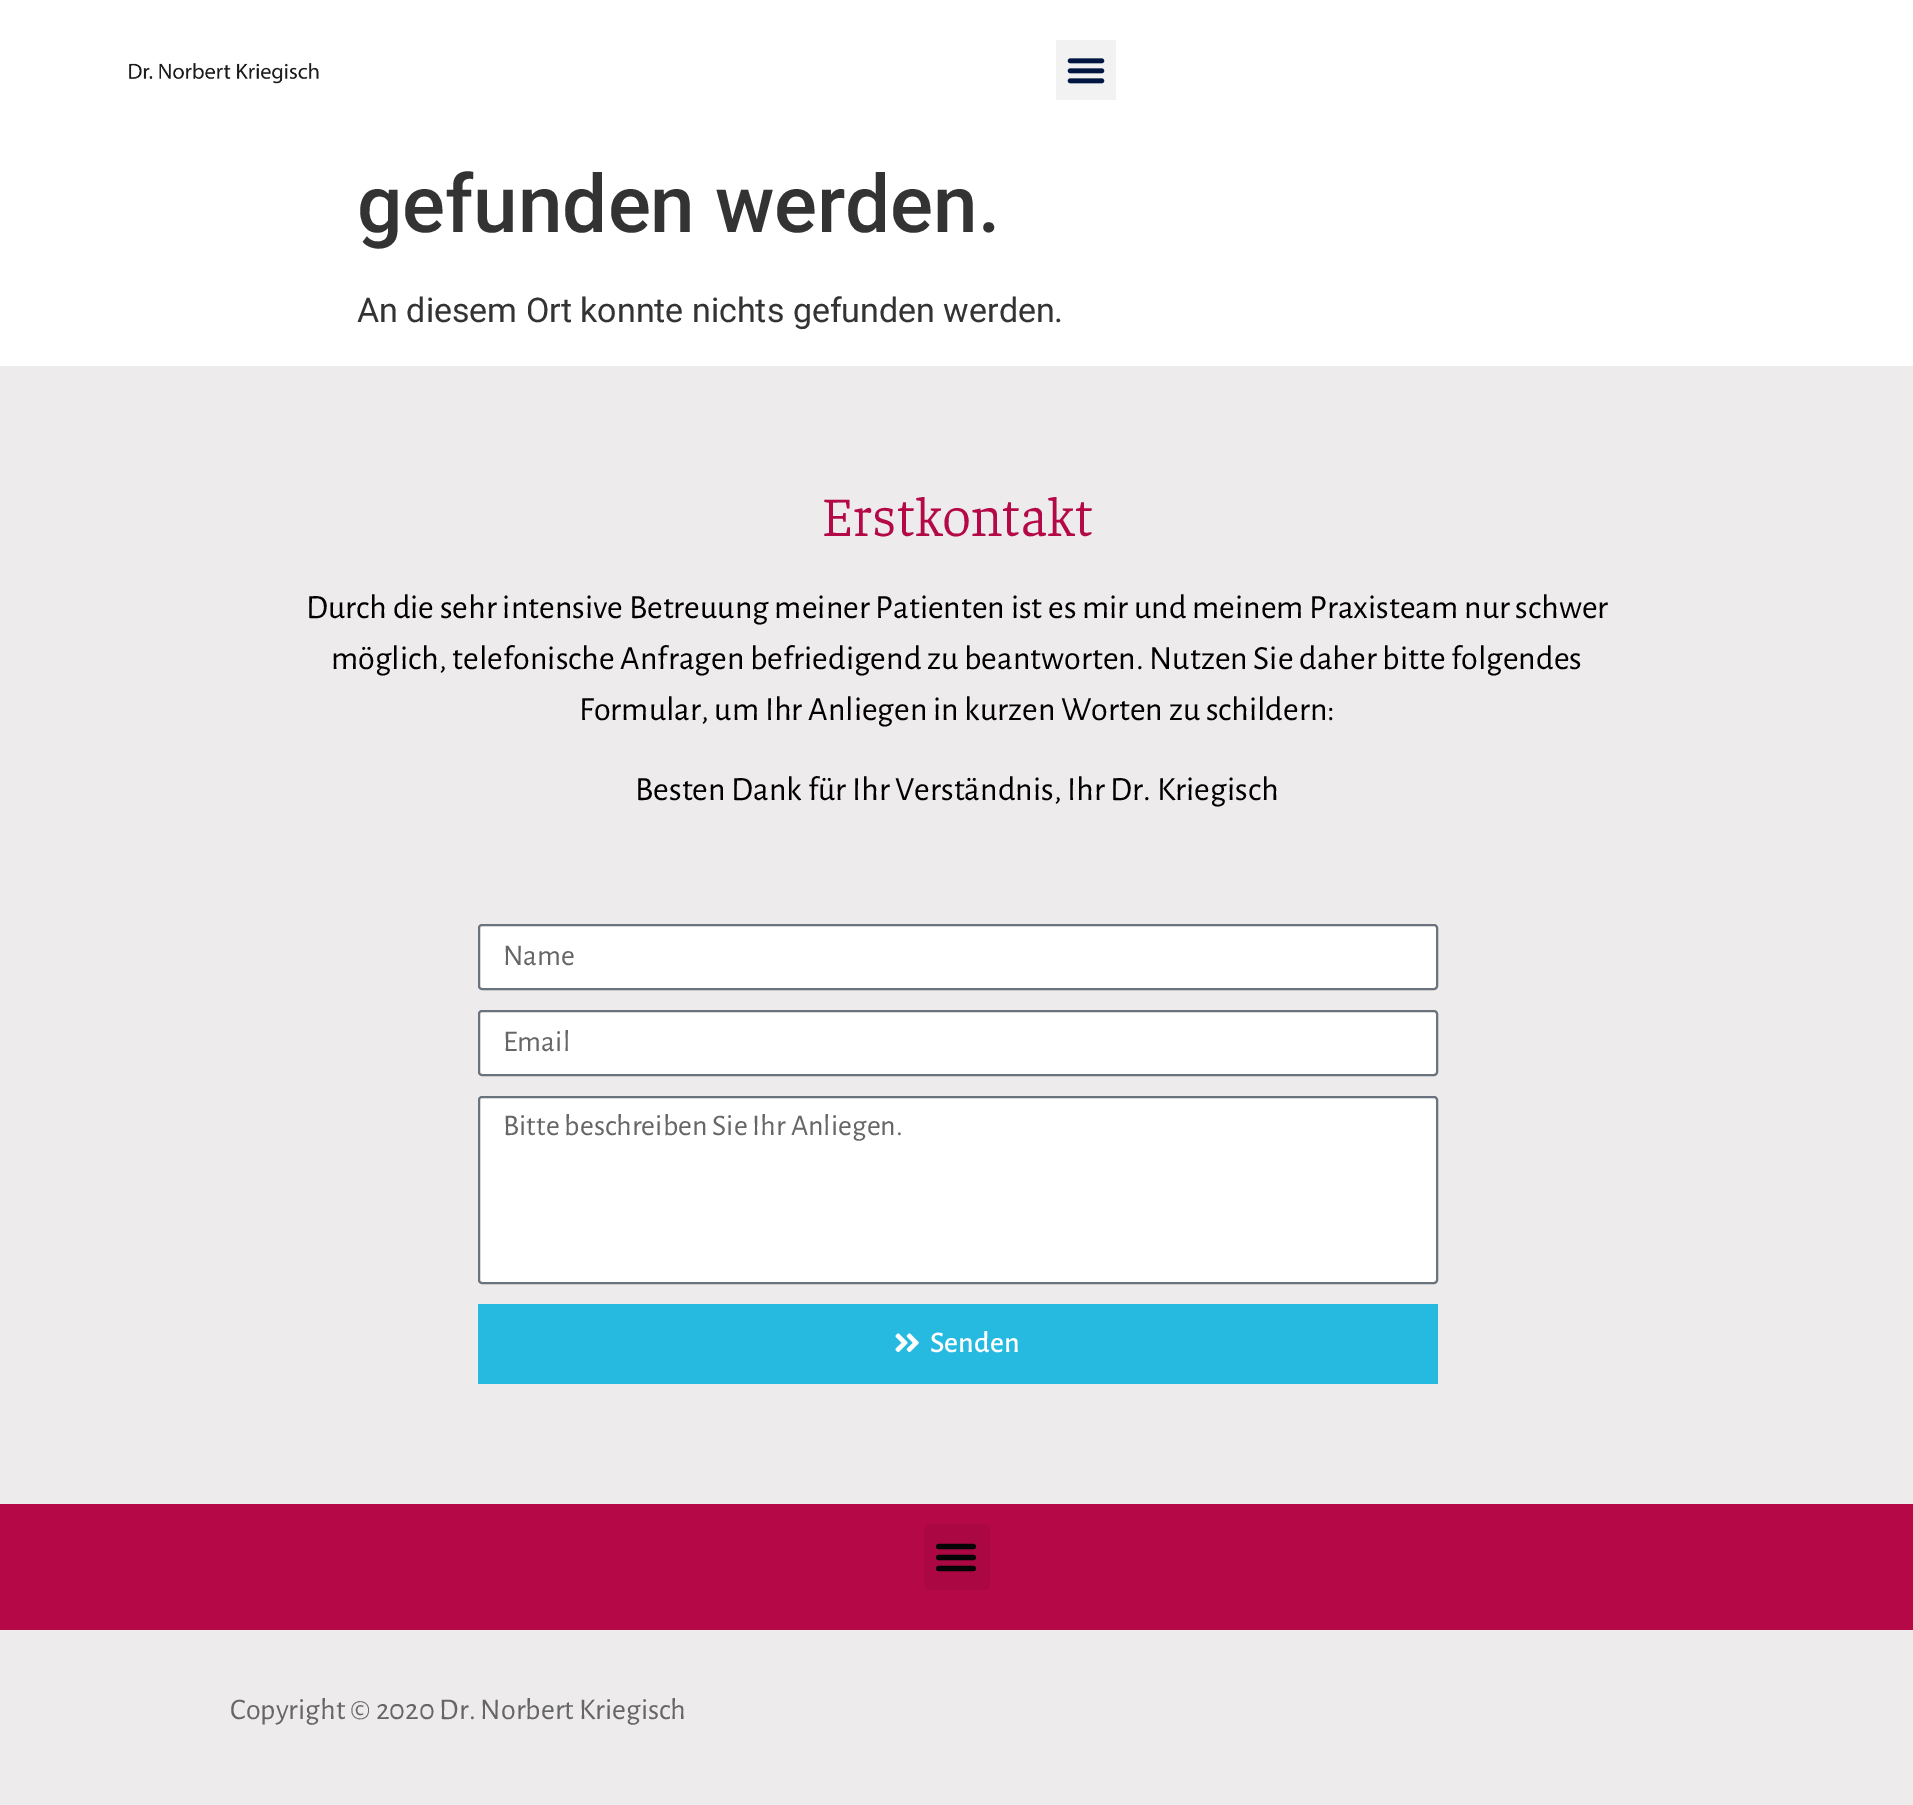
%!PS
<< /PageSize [1913 1805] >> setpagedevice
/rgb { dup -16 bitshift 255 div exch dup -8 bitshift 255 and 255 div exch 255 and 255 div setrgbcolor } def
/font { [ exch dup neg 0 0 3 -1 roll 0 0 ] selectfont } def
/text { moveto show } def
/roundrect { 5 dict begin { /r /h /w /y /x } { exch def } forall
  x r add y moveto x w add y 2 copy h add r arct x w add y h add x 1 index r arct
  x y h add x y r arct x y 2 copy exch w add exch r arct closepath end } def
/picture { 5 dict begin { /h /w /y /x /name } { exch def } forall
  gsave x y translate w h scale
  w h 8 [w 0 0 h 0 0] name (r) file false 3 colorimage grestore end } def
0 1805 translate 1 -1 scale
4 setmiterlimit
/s1 { /Roboto-Medium 80 font 16#333333 rgb } def
/s2 { /Roboto-Regular 34 font 16#333333 rgb } def
/s3 { /Faustina-Light 56 font 16#B40847 rgb } def
/s4 { /AlegreyaSans-Regular 34 font 16#000000 rgb } def
/s5 { /AlegreyaSans-Regular 30 font 16#666666 rgb } def
/s6 { /AlegreyaSans-Medium 30 font 16#FFFFFF rgb } def
16#FFFFFF rgb
0 0 1913 1805 rectfill
(pic1.raw) 129 63 190 21 picture
16#F2F2F2 rgb
1056 40 60 60 rectfill
(pic2.raw) 1067 58 38 26 picture
s1
(gefunden werden.) 357 232 text
s2
(An diesem Ort konnte nichts gefunden werden.) 357 322 text
16#EDEBEB rgb
0 366 1913 1138 rectfill
s3
(Erstkontakt) 821 536 text
s4
(Durch die sehr intensive Betreuung meiner Patienten ist es mir und meinem Praxisteam nur schwer) 306 618 text
(möglich, telefonische Anfragen befriedigend zu beantworten. Nutzen Sie daher bitte folgendes) 331 669 text
(Formular, um Ihr Anliegen in kurzen Worten zu schildern:) 579 720 text
(Besten Dank für Ihr Verständnis, Ihr Dr. Kriegisch) 635 800 text
16#FFFFFF rgb
479 925 958 64 3 roundrect gsave fill grestore
16#69727D rgb
2 setlinewidth
stroke
s5
(Name) 503 965 text
16#FFFFFF rgb
479 1011 958 64 3 roundrect gsave fill grestore
16#69727D rgb
stroke
s5
(Email) 503 1051 text
16#FFFFFF rgb
479 1097 958 186 3 roundrect gsave fill grestore
16#69727D rgb
stroke
s5
(Bitte beschreiben Sie Ihr Anliegen.) 503 1135 text
16#26BAE1 rgb
478 1304 960 80 rectfill
(pic3.raw) 895 1333 24 20 picture
s6
(Senden) 930 1352 text
16#B40847 rgb
0 1504 1913 126 rectfill
16#AB0843 rgb
924 1524 66 66 6 roundrect fill
(pic4.raw) 935 1543 42 29 picture
16#EDEBEB rgb
0 1630 1913 175 rectfill
s5
(Copyright © 2020 Dr. Norbert Kriegisch) 230 1719 text
showpage
